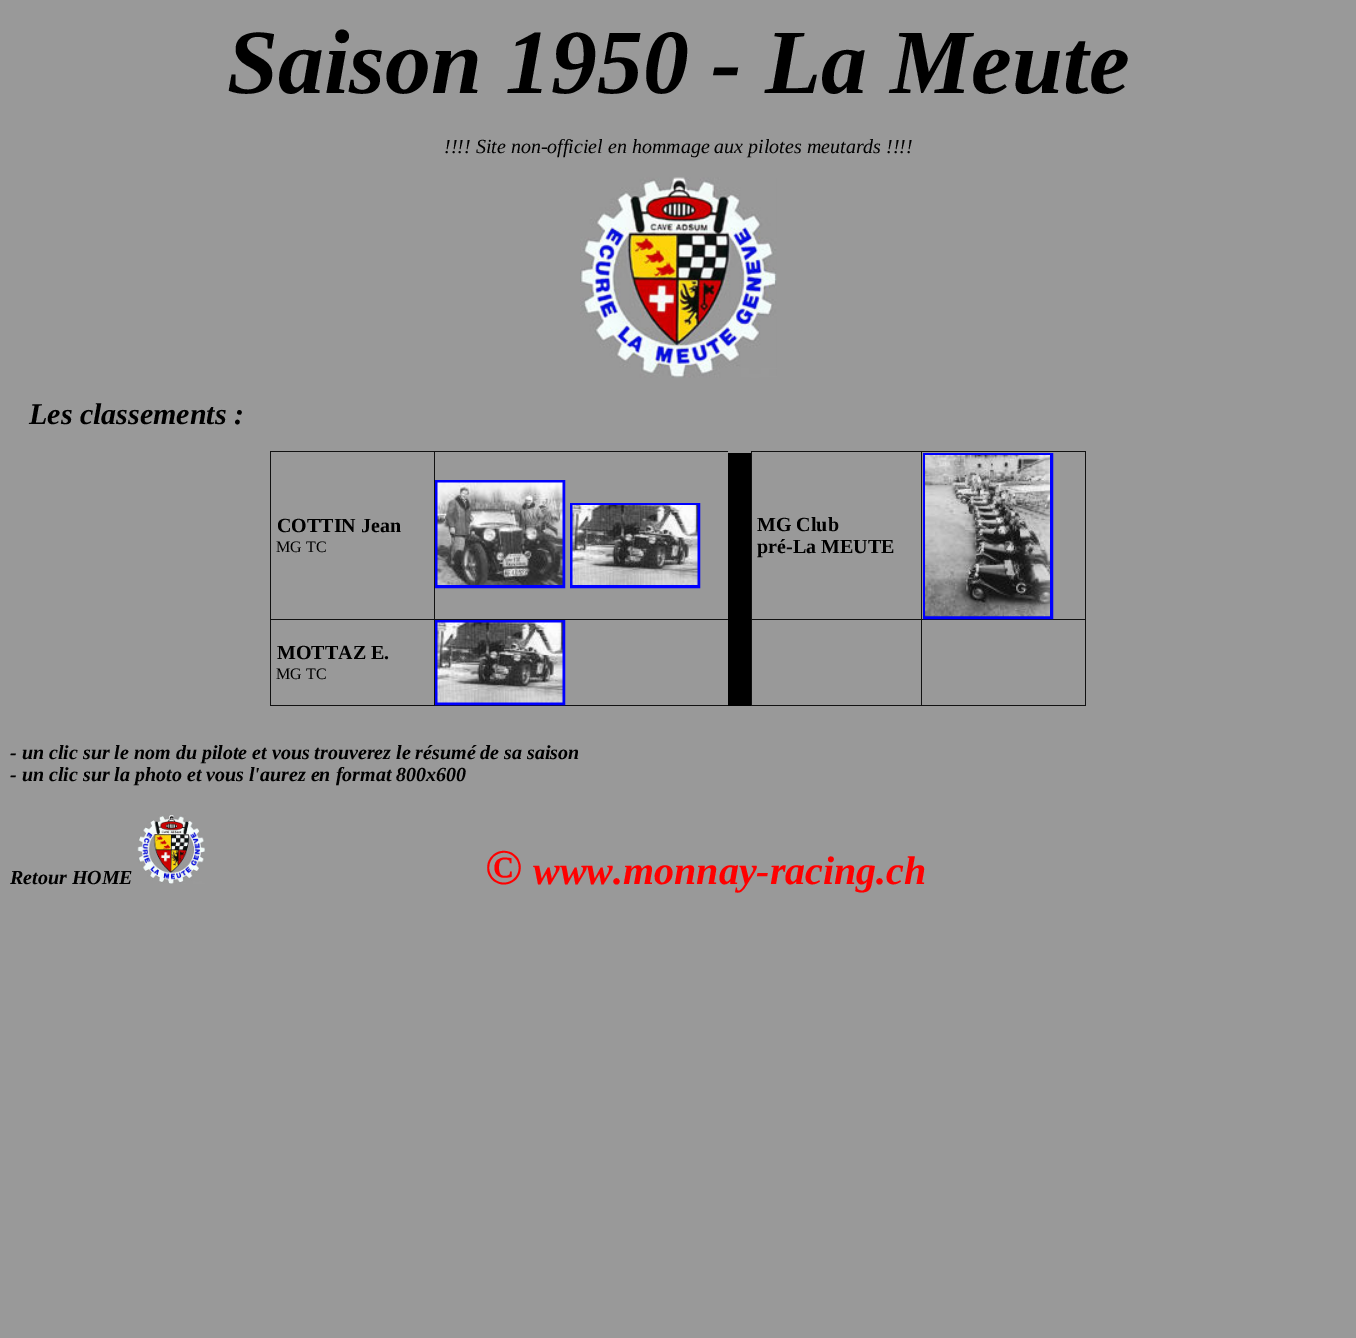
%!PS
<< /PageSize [1356 1338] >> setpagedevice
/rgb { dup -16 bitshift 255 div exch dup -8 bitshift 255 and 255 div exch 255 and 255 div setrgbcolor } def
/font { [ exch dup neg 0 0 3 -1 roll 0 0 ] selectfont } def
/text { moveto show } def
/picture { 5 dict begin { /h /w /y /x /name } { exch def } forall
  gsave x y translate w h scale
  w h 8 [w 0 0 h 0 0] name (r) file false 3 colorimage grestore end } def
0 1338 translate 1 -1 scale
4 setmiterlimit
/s1 { /LiberationSerif-BoldItalic 91.75 font 16#000000 rgb } def
/s2 { /LiberationSerif-Italic 20 font 16#000000 rgb } def
/s3 { /LiberationSerif-BoldItalic 30 font 16#000000 rgb } def
/s4 { /LiberationSerif-Bold 20 font 16#000000 rgb } def
/s5 { /LiberationSerif-Regular 16 font 16#000000 rgb } def
/s6 { /LiberationSerif-BoldItalic 20 font 16#000000 rgb } def
/s7 { /LiberationSerif-BoldItalic 50 font 16#FF0000 rgb } def
/s8 { /LiberationSerif-BoldItalic 40 font 16#FF0000 rgb } def
16#999999 rgb
0 0 1356 1338 rectfill
s1
(Saison 1950 - La Meute) 227 93 text
s2
(!!!! Site non-officiel en hommage aux pilotes meutards !!!!) 444 153 text
(pic1.raw) 580 177 197 201 picture
s3
(Les classements :) 29 424 text
16#111111 rgb
1085 451 1 255 rectfill
270 451 1 255 rectfill
434 451 294 1 rectfill
434 619 294 1 rectfill
434 705 294 1 rectfill
434 619 1 87 rectfill
270 619 165 1 rectfill
434 451 1 169 rectfill
270 451 165 1 rectfill
s4
(COTTIN Jean) 277 532 text
s5
(MG TC) 276 552 text
16#0000FF rgb
3 setlinewidth
436.5 481.5 127 105 rectstroke
(pic2.raw) 437 482 126 103 picture
571.5 504.5 127 82 rectstroke
(pic3.raw) 572 505 126 80 picture
16#000000 rgb
728 453 23 253 rectfill
16#111111 rgb
921 451 165 1 rectfill
921 619 165 1 rectfill
921 705 165 1 rectfill
921 619 1 87 rectfill
751 619 172 1 rectfill
921 451 1 169 rectfill
751 451 172 1 rectfill
751 705 172 1 rectfill
751 619 1 87 rectfill
751 451 1 169 rectfill
s4
(MG Club) 757 531 text
(pré-La MEUTE) 757 553 text
16#0000FF rgb
924.5 454.5 127 163 rectstroke
(pic4.raw) 925 455 125 162 picture
16#111111 rgb
270 705 165 1 rectfill
s4
(MOTTAZ E.) 277 659 text
s5
(MG TC) 276 679 text
16#0000FF rgb
436.5 621.5 127 82 rectstroke
(pic5.raw) 437 622 126 81 picture
s6
(- un clic sur le nom du pilote et vous trouverez le résumé de sa saison) 10 759 text
(- un clic sur la photo et vous l'aurez en format 800x600) 10 781 text
(Retour HOME) 10 884 text
(pic6.raw) 137 815 68 69 picture
s7
(©) 485 884 text
s8
(www.monnay-racing.ch) 533 884 text
showpage
